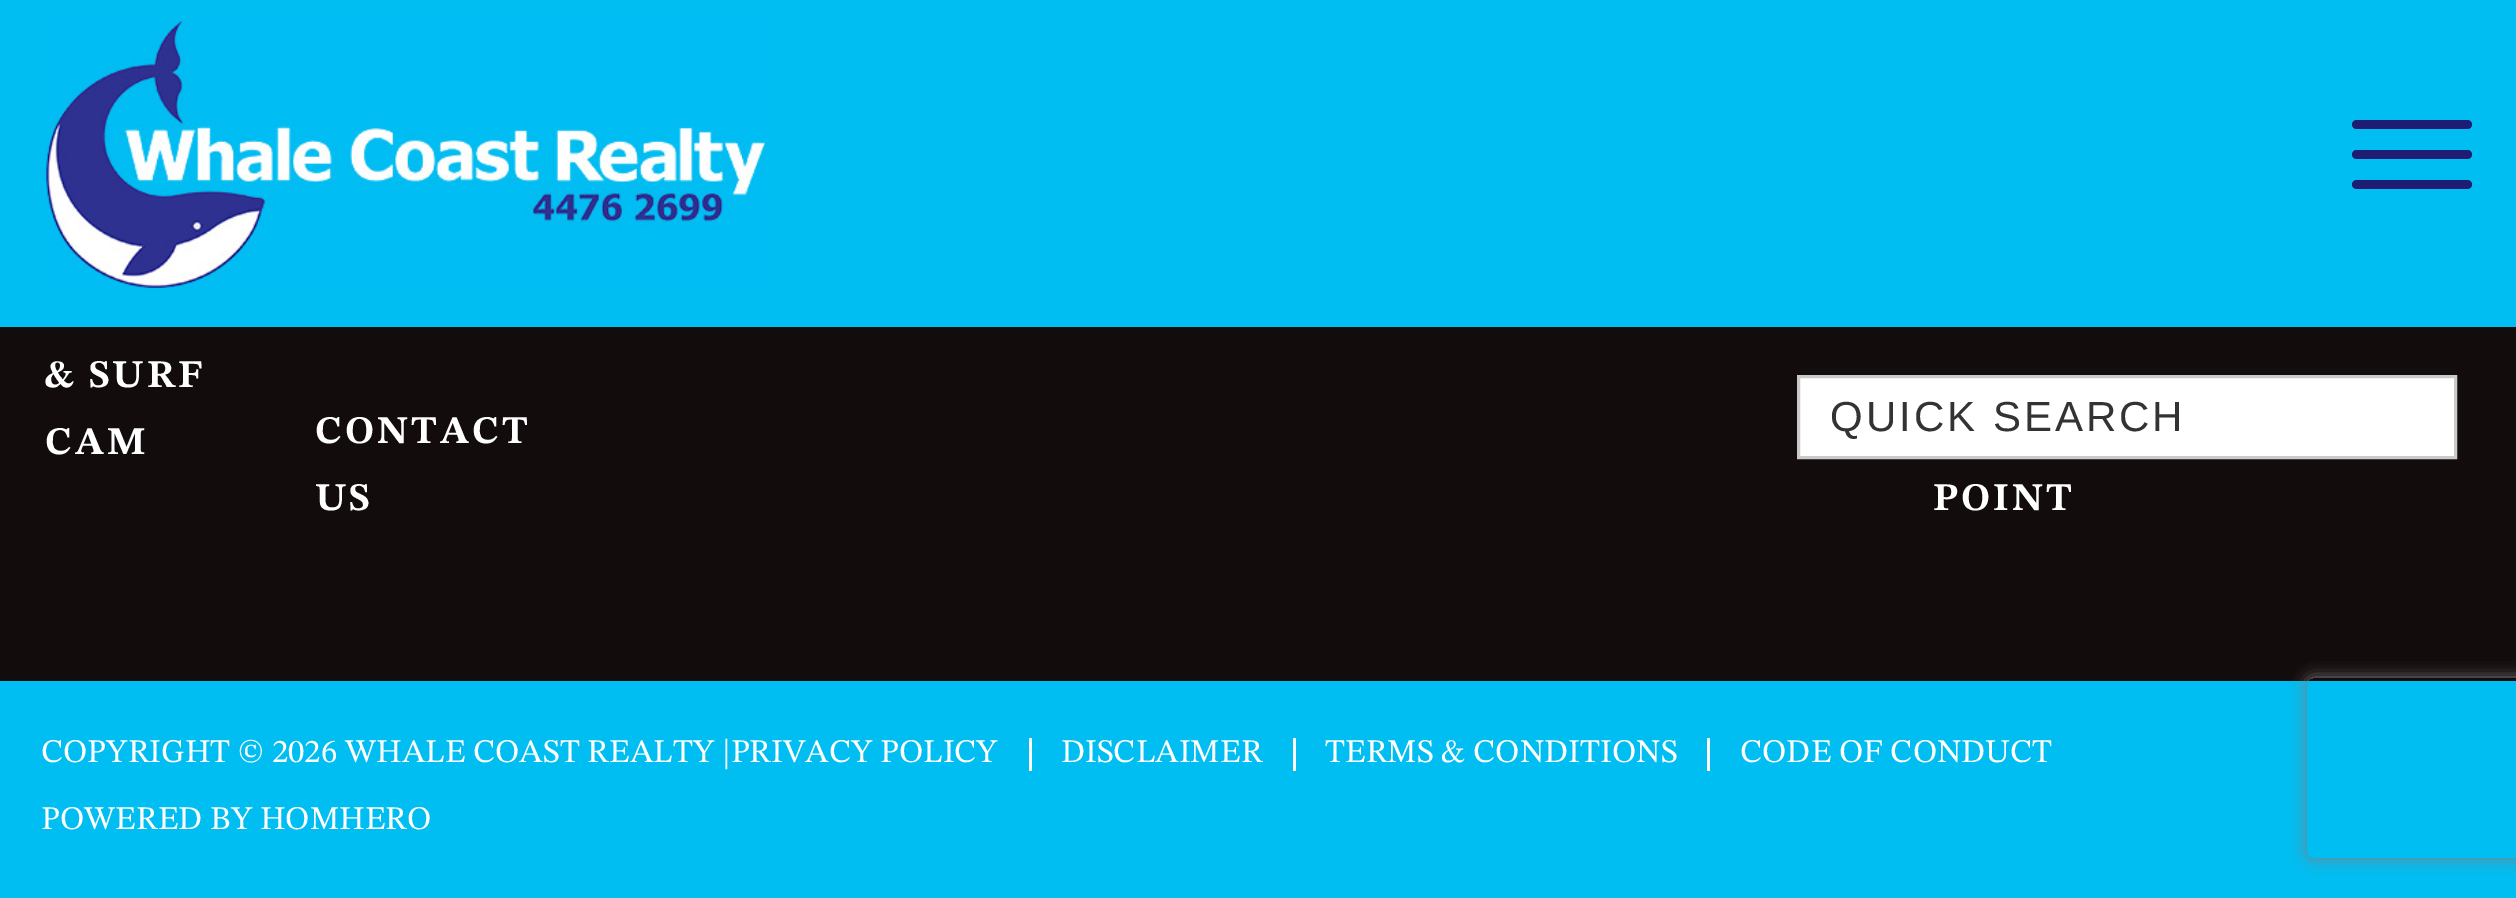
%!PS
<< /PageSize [2516 898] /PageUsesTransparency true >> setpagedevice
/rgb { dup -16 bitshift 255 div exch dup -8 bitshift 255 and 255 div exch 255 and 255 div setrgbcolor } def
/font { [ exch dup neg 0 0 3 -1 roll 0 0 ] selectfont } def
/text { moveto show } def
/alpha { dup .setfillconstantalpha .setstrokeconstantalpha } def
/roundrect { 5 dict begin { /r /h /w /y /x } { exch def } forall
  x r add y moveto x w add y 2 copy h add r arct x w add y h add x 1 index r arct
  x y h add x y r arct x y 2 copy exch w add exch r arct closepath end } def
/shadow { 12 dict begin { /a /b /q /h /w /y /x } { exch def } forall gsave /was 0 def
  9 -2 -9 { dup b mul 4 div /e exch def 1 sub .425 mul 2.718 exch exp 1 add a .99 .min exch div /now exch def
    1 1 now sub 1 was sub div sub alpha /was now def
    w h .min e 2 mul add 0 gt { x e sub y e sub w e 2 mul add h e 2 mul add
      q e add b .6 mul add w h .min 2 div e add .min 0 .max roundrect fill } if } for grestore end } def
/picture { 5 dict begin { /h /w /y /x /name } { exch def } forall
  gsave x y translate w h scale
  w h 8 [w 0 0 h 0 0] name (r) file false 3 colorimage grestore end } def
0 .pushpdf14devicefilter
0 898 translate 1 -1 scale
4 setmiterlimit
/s1 { /STIXTwoText-Regular 33 font 16#FFFFFF rgb } def
16#130C0D rgb
0 0 2516 898 rectfill
/STIXTwoText-Bold 39 font
16#FFFFFF rgb
45 387 moveto 3 0 (& SURF) ashow
45 454 moveto 3 0 (CAM) ashow
315 443 moveto 3 0 (CONTACT) ashow
315 510 moveto 3 0 (US) ashow
1933 510 moveto 3 0 (POINT) ashow
16#00BDF2 rgb
0 0 2516 327 rectfill
(pic1.raw) 45 21 720 272 picture
16#1F1C73 rgb
2352 120 120 9 4.5 roundrect fill
2352 150 120 9 4.5 roundrect fill
2352 180 120 9 4.5 roundrect fill
16#FFFFFF rgb
1798.5 376.5 moveto 2455.5 376.5 lineto 2455.5 457.5 lineto 1798.5 457.5 lineto closepath gsave fill grestore
16#CACACA rgb
3 setlinewidth
stroke
/LiberationSans-Regular 42 font
16#333333 rgb
1830 431 moveto 3 0 (QUICK SEARCH) ashow
16#00BDF2 rgb
0 681 2516 217 rectfill
s1
(COPYRIGHT © 2026 WHALE COAST REALTY |PRIVACY POLICY) 41 762 text
1029 738 3 33 rectfill
(DISCLAIMER) 1061 762 text
1293 738 3 33 rectfill
(TERMS & CONDITIONS) 1325 762 text
1707 738 3 33 rectfill
(CODE OF CONDUCT) 1740 762 text
(POWERED BY HOMHERO) 41 829 text
gsave
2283 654 moveto 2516 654 lineto 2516 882 lineto 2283 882 lineto closepath 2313 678 moveto 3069 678 lineto 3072.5 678 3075 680.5 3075 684 curveto 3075 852 lineto 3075 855.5 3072.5 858 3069 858 curveto 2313 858 lineto 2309.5 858 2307 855.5 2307 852 curveto 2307 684 lineto 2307 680.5 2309.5 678 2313 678 curveto closepath eoclip newpath
16#808080 rgb
2307 678 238 180 6 7.5 1 shadow
grestore
.poppdf14devicefilter showpage
